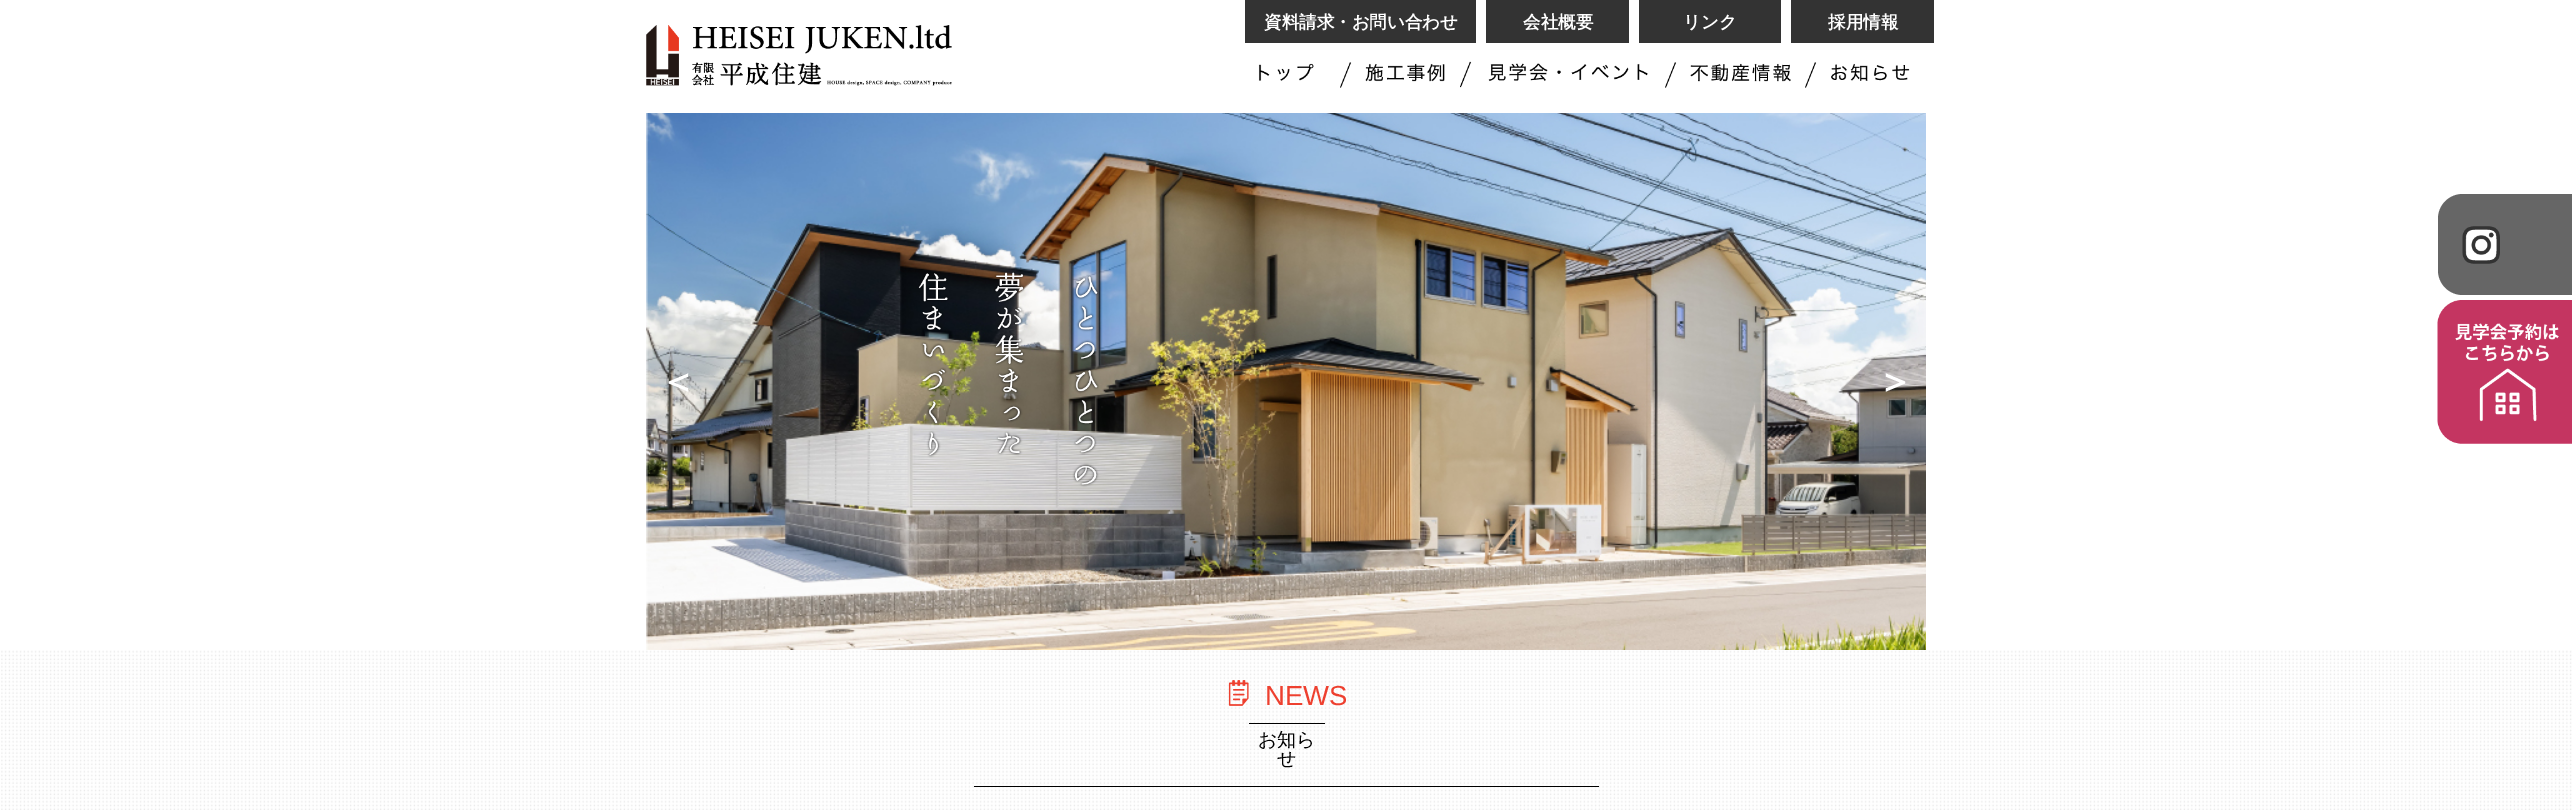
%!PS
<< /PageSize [2572 810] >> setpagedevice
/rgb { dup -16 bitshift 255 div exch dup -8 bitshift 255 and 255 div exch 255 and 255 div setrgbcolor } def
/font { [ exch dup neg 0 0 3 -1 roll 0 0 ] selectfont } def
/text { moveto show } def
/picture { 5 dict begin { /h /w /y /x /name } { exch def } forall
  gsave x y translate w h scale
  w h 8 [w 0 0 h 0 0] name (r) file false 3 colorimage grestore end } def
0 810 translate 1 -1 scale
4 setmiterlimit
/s1 { /WenQuanYiZenHei-Bold 17.5 font 16#FFFFFF rgb } def
/s2 { /WenQuanYiZenHei-Bold 38 font 16#FFFFFF rgb } def
/s3 { /LiberationSans-Regular 27.5 font 16#EE402F rgb } def
/s4 { /WenQuanYiZenHei-Medium 19 font 16#000000 rgb } def
16#FFFFFF rgb
0 0 2572 810 rectfill
16#333333 rgb
1245 0 231 43 rectfill
s1
(資料請求・お問い合わせ) 1264 28 text
16#333333 rgb
1486 0 143 43 rectfill
s1
(会社概要) 1523 28 text
16#333333 rgb
1639 0 142 43 rectfill
s1
(リンク) 1683 28 text
16#333333 rgb
1791 0 143 43 rectfill
s1
(採用情報) 1828 28 text
(pic1.raw) 1258 63 56 18 picture
(pic2.raw) 1340 62 105 26 picture
(pic3.raw) 1460 61 188 27 picture
(pic4.raw) 1665 62 126 26 picture
(pic5.raw) 1805 62 105 26 picture
(pic6.raw) 646 25 306 61 picture
16#666666 rgb
2463 194 moveto 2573 194 lineto 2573 295 lineto 2463 295 lineto 2449 295 2438 284 2438 270 curveto 2438 219 lineto 2438 205 2449 194 2463 194 curveto closepath fill
(pic7.raw) 2462 226 38 38 picture
(pic8.raw) 2437 300 135 144 picture
(pic10.raw) 646 113 1280 537 picture
(pic9.raw) 918 272 181 215 picture
s2
(＜) 659 394 text
(＞) 1876 394 text
(pic11.raw) 1 650 2571 160 picture
(pic12.raw) 1228 680 21 26 picture
s3
(NEWS) 1265 705 text
16#000000 rgb
1249 723 76 1 rectfill
s4
(お知ら) 1258 746 text
(せ) 1277 765 text
974 786 625 1 rectfill
showpage
